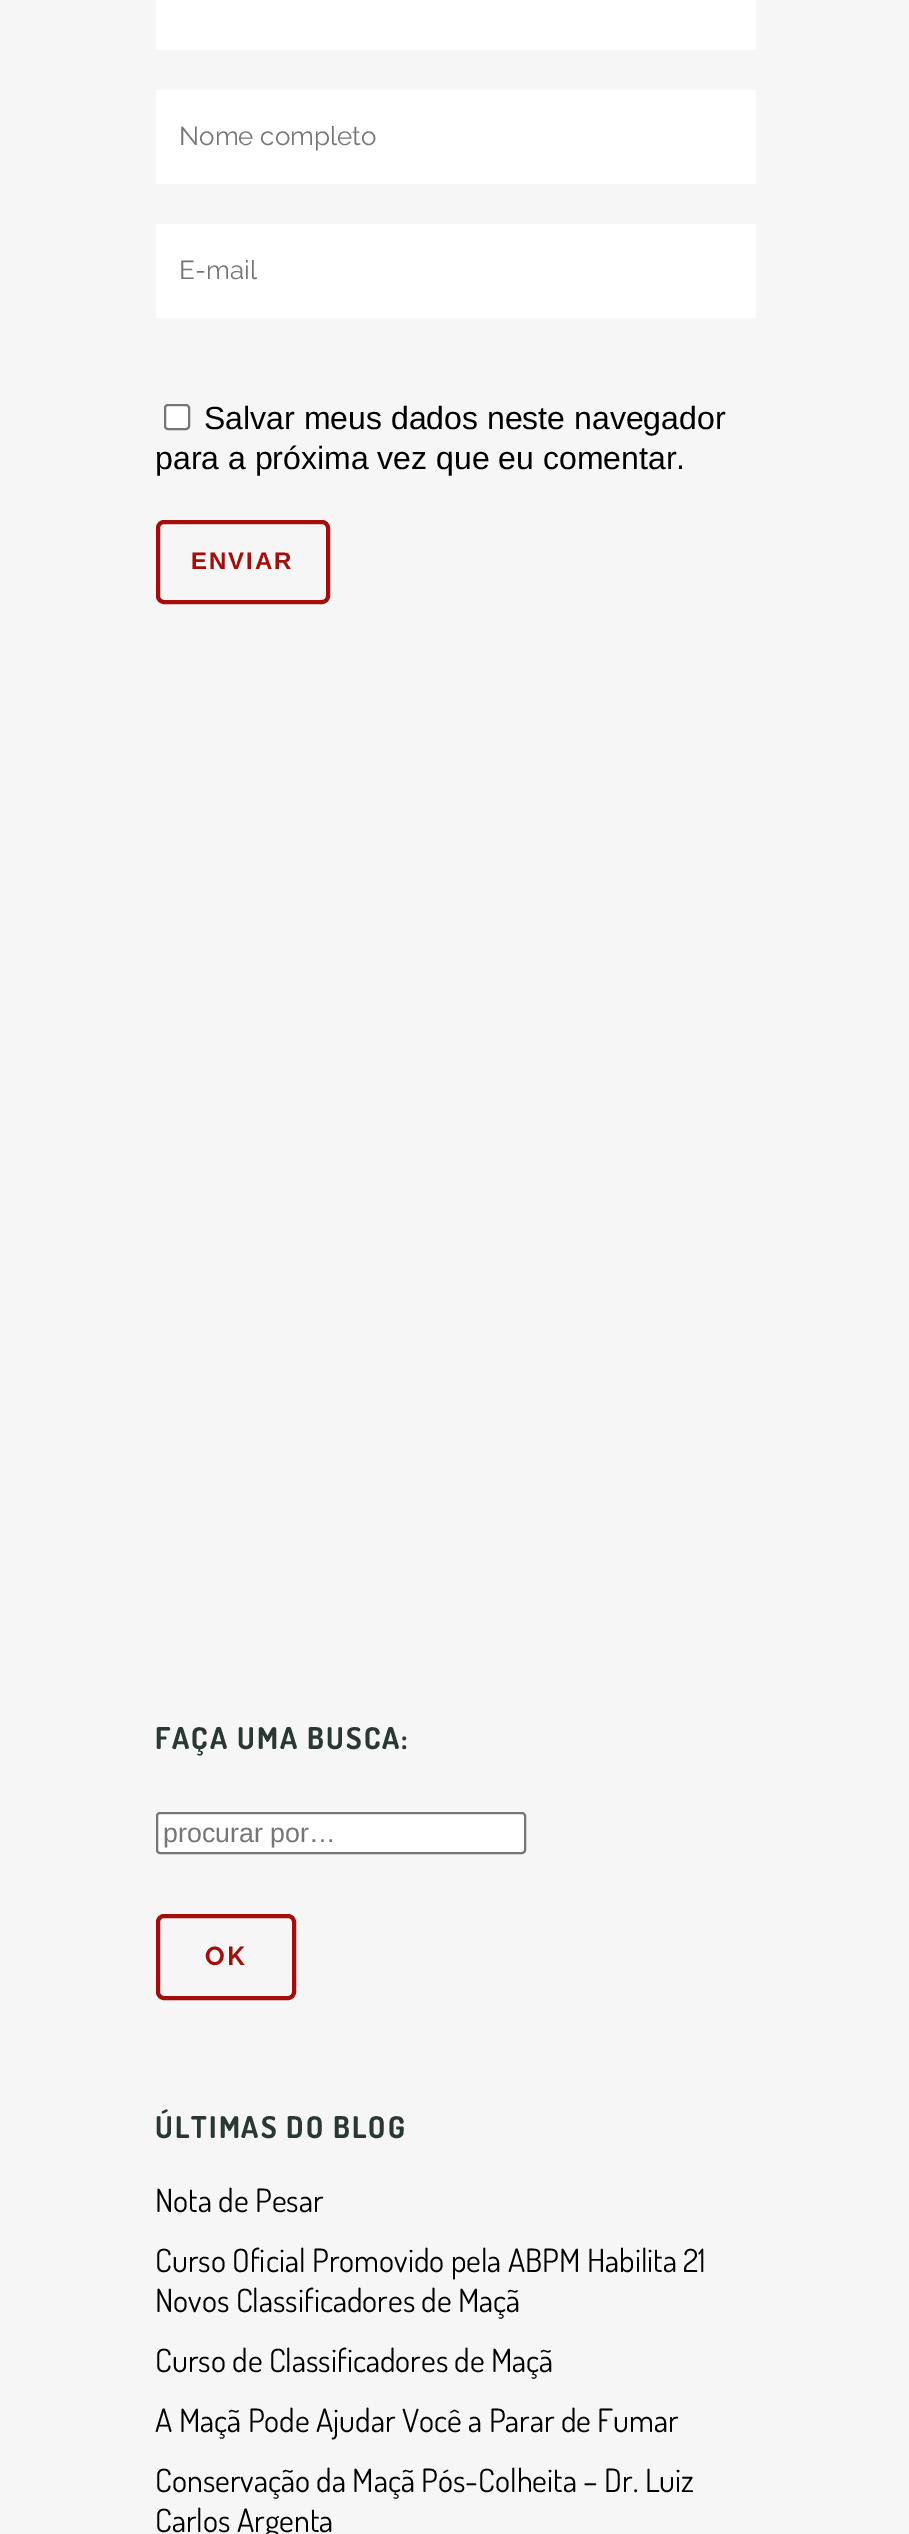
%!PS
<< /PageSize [909 2534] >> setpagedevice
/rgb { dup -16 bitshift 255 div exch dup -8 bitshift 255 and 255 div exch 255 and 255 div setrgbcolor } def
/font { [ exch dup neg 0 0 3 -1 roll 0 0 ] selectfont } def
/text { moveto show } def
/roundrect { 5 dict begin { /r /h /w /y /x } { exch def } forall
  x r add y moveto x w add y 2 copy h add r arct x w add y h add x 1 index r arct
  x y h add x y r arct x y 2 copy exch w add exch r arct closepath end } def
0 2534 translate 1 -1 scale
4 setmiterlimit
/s1 { /Raleway-Regular 26 font 16#757575 rgb } def
/s2 { /LiberationSans-Regular 32 font 16#000000 rgb } def
/s3 { /LiberationSans-Regular 26.75 font 16#757575 rgb } def
/s4 { /Dosis-Regular 32 font 16#000000 rgb } def
16#F6F6F6 rgb
0 0 909 2534 rectfill
16#FFFFFF rgb
156 0 600 50 rectfill
156 90 600 94 rectfill
s1
(Nome completo) 179 145 text
16#FFFFFF rgb
156 224 600 94 rectfill
s1
(E-mail) 179 279 text
16#FFFFFF rgb
165 405 24 24 3 roundrect gsave fill grestore
16#767676 rgb
2 setlinewidth
stroke
s2
(Salvar meus dados neste navegador) 204 429 text
(para a próxima vez que eu comentar.) 155 469 text
16#A30D0A rgb
4 setlinewidth
158 522 170 80 6 roundrect stroke
/LiberationSans-Bold 24 font
191 569 moveto 2 0 (ENVIAR) ashow
/Dosis-Bold 30 font
16#2A3831 rgb
155 1749 moveto 2 0 (FAÇA UMA BUSCA:) ashow
16#FFFFFF rgb
157 1813 368 40 3 roundrect gsave fill grestore
16#767676 rgb
2 setlinewidth
stroke
s3
(procurar por…) 163 1842 text
16#A30D0A rgb
4 setlinewidth
158 1916 136 82 6 roundrect stroke
/Raleway-Bold 26 font
205 1965 moveto 2 0 (OK) ashow
/Dosis-Bold 30 font
16#2A3831 rgb
155 2138 moveto 2 0 (ÚLTIMAS DO BLOG) ashow
s4
(Nota de Pesar) 155 2212 text
(Curso Oficial Promovido pela ABPM Habilita 21) 155 2272 text
(Novos Classificadores de Maçã) 155 2312 text
(Curso de Classificadores de Maçã) 155 2372 text
(A Maçã Pode Ajudar Você a Parar de Fumar) 155 2432 text
(Conservação da Maçã Pós-Colheita – Dr. Luiz) 155 2492 text
(Carlos Argenta) 155 2532 text
showpage
